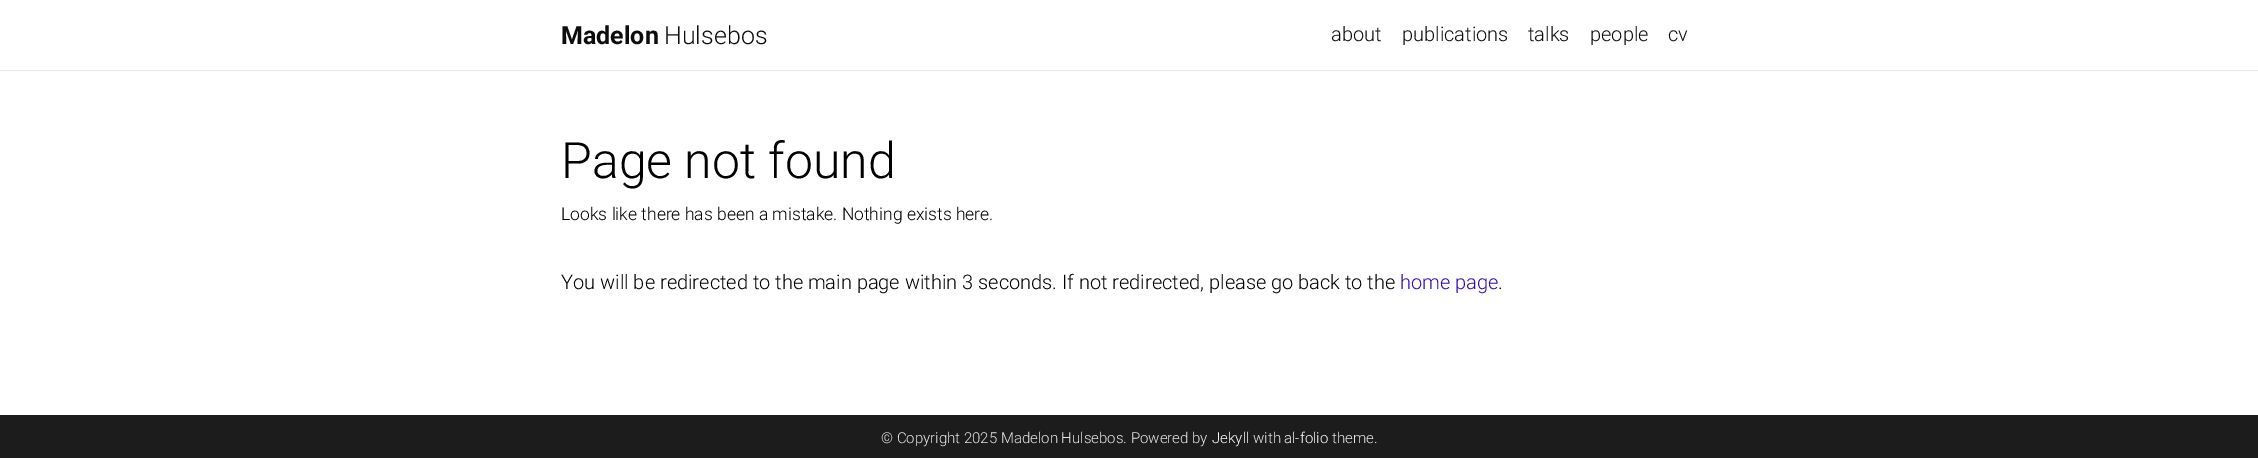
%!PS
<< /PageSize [2258 458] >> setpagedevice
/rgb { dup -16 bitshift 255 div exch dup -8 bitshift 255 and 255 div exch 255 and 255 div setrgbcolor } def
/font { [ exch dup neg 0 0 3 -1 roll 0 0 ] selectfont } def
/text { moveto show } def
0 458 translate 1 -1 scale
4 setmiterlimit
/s1 { /Roboto-Bold 25 font 16#0D0D0D rgb } def
/s2 { /Roboto-Light 25 font 16#0D0D0D rgb } def
/s3 { /Roboto-Light 20 font 16#0D0D0D rgb } def
/s4 { /Roboto-Light 50 font 16#000000 rgb } def
/s5 { /Roboto-Light 17.5 font 16#000000 rgb } def
/s6 { /Roboto-Light 20 font 16#000000 rgb } def
/s7 { /Roboto-Light 20 font 16#3508AB rgb } def
/s8 { /Roboto-Light 15 font 16#E8E8E8 rgb } def
/s9 { /Roboto-Light 15 font 16#FFFFFF rgb } def
16#FFFFFF rgb
0 0 2258 458 rectfill
16#E7E7E7 rgb
0 70 2258 1 rectfill
s1
(Madelon) 561 44 text
s2
(Hulsebos) 664 44 text
s3
(about) 1331 41 text
(publications) 1402 41 text
(talks) 1528 41 text
(people) 1590 41 text
(cv) 1668 41 text
s4
(Page not found) 561 178 text
s5
(Looks like there has been a mistake. Nothing exists here.) 561 220 text
s6
(You will be redirected to the main page within 3 seconds. If not redirected, please go back to the) 561 289 text
s7
(home page) 1400 289 text
s6
(.) 1498 289 text
16#1C1C1D rgb
0 415 2258 43 rectfill
s8
(© Copyright 2025 Madelon Hulsebos. Powered by) 881 443 text
s9
(Jekyll) 1212 443 text
s8
(with) 1253 443 text
s9
(al-folio) 1284 443 text
s8
(theme.) 1332 443 text
showpage
